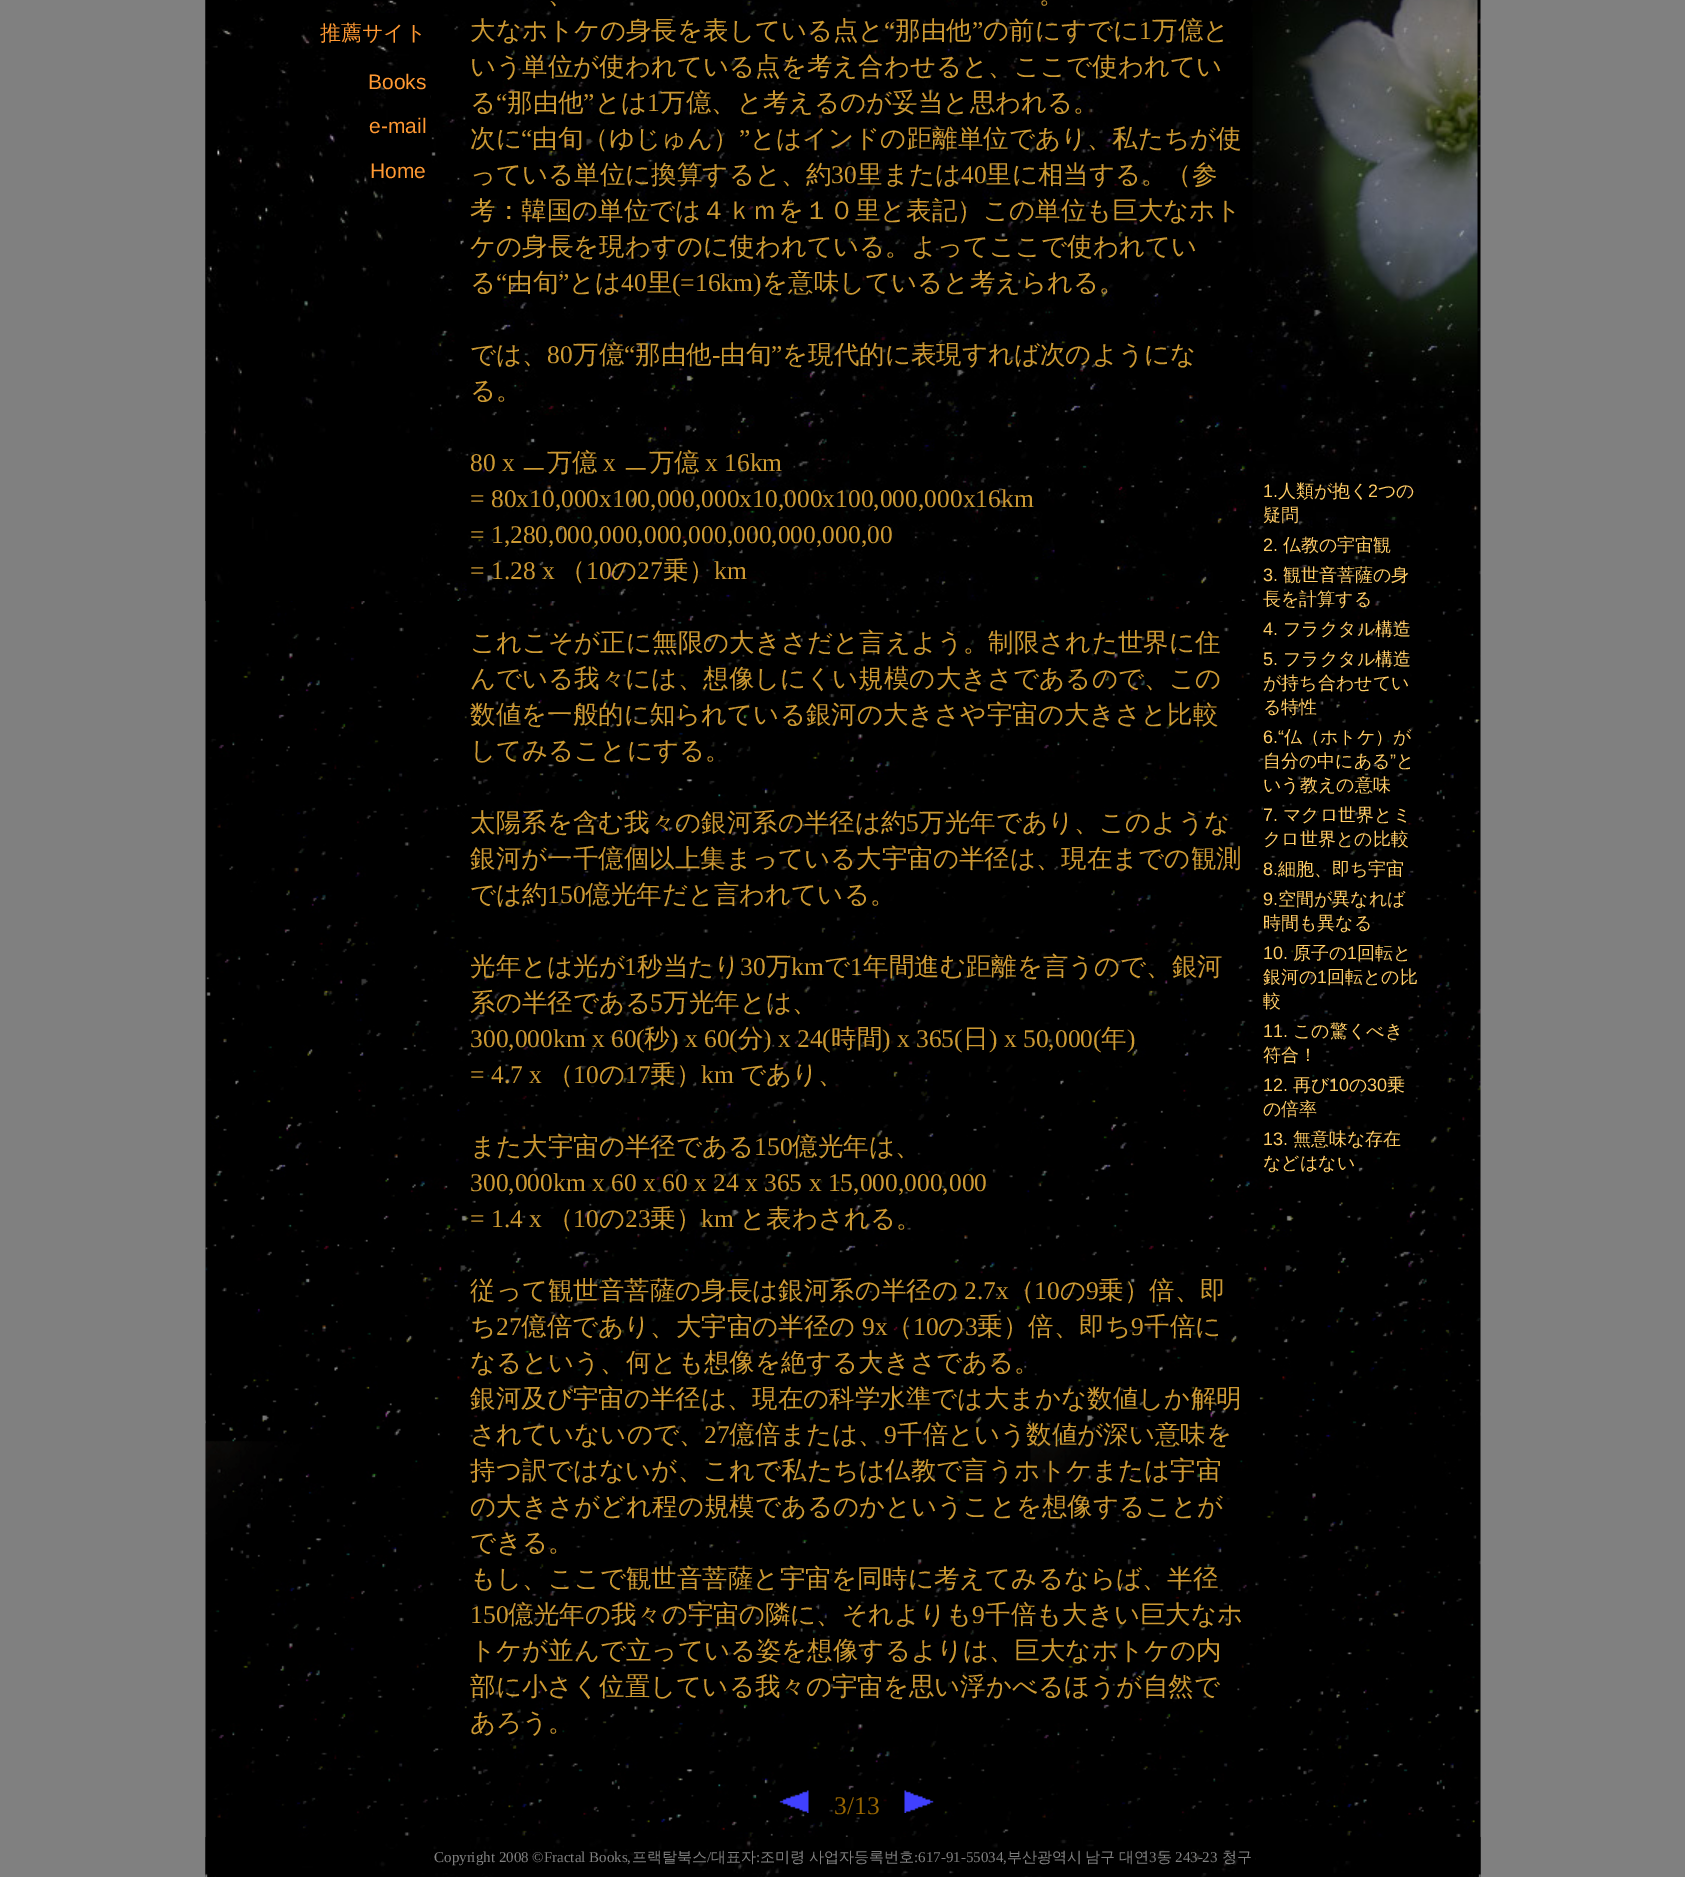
%!PS
<< /PageSize [1685 1877] >> setpagedevice
/rgb { dup -16 bitshift 255 div exch dup -8 bitshift 255 and 255 div exch 255 and 255 div setrgbcolor } def
/font { [ exch dup neg 0 0 3 -1 roll 0 0 ] selectfont } def
/text { moveto show } def
/picture { 5 dict begin { /h /w /y /x /name } { exch def } forall
  gsave x y translate w h scale
  w h 8 [w 0 0 h 0 0] name (r) file false 3 colorimage grestore end } def
0 1877 translate 1 -1 scale
4 setmiterlimit
/s1 { /WenQuanYiZenHei-Medium 21 font 16#FF9933 rgb } def
/s2 { /LiberationSans-Regular 21 font 16#FF9933 rgb } def
/s3 { /WenQuanYiZenHei-Medium 25.5 font 16#CC9933 rgb } def
/s4 { /LiberationSerif-Regular 25.5 font 16#CC9933 rgb } def
/s5 { /LiberationSerif-Regular 25.5 font 16#996600 rgb } def
/s6 { /LiberationSans-Regular 18 font 16#FFCC66 rgb } def
/s7 { /WenQuanYiZenHei-Medium 18 font 16#FFCC66 rgb } def
/s8 { /LiberationSerif-Regular 15 font 16#808080 rgb } def
/s9 { /WenQuanYiZenHei-Medium 15 font 16#808080 rgb } def
16#808080 rgb
0 0 1685 1877 rectfill
(pic1.raw) 205 0 1276 1877 picture
(pic2.raw) 205 0 226 601 picture
s1
(推薦サイト) 320 40 text
s2
(Books) 368 89 text
(e-mail) 369 133 text
(Home) 370 178 text
(pic3.raw) 430 0 826 601 picture
s3
(、) 548 3 text
(。) 1039 3 text
(大なホトケの身長を表している点と) 470 39 text
s4
(“) 884 39 text
s3
(那由他) 895 39 text
s4
(”) 972 39 text
s3
(の前にすでに) 983 39 text
s4
(1) 1139 39 text
s3
(万億と) 1152 39 text
(いう単位が使われている点を考え合わせると、ここで使われてい) 470 75 text
(る) 470 111 text
s4
(“) 496 111 text
s3
(那由他) 507 111 text
s4
(”) 583 111 text
s3
(とは) 595 111 text
s4
(1) 647 111 text
s3
(万億、と考えるのが妥当と思われる。) 660 111 text
(次に) 470 147 text
s4
(“) 521 147 text
s3
(由旬（ゆじゅん）) 532 147 text
s4
(”) 739 147 text
s3
(とはインドの距離単位であり、私たちが使) 750 147 text
(っている単位に換算すると、約) 470 183 text
s4
(30) 831 183 text
s3
(里または) 857 183 text
s4
(40) 961 183 text
s3
(里に相当する。（参) 986 183 text
(考：韓国の単位では４ｋｍを１０里と表記）この単位も巨大なホト) 470 219 text
(ケの身長を現わすのに使われている。よってここで使われてい) 470 255 text
(る) 470 291 text
s4
(“) 496 291 text
s3
(由旬) 507 291 text
s4
(”) 558 291 text
s3
(とは) 569 291 text
s4
(40) 621 291 text
s3
(里) 647 291 text
s4
(\(=16km\)) 672 291 text
s3
(を意味していると考えられる。) 762 291 text
(では、) 470 363 text
s4
(80) 547 363 text
s3
(万億) 573 363 text
s4
(“) 624 363 text
s3
(那由他) 635 363 text
(由旬) 720 363 text
s4
(”) 771 363 text
s3
(を現代的に表現すれば次のようにな) 782 363 text
s4
(-) 712 363 text
s3
(る。) 470 399 text
s4
(80 x) 470 471 text
s3
(ㅡ万億) 521 471 text
s4
(x) 603 471 text
s3
(ㅡ万億) 623 471 text
s4
(x 16km) 705 471 text
(= 80x10,000x100,000,000x10,000x100,000,000x16km) 470 507 text
(= 1,280,000,000,000,000,000,000,000,00) 470 543 text
(= 1.28 x) 470 579 text
s3
(（) 560 579 text
s4
(10) 586 579 text
s3
(の) 611 579 text
s4
(27) 637 579 text
s3
(乗）) 663 579 text
s4
(km) 714 579 text
s3
(これこそが正に無限の大きさだと言えよう。制限された世界に住) 470 651 text
(んでいる我々には、想像しにくい規模の大きさであるので、この) 470 687 text
(数値を一般的に知られている銀河の大きさや宇宙の大きさと比較) 470 723 text
(してみることにする。) 470 759 text
(太陽系を含む我々の銀河系の半径は約) 470 831 text
s4
(5) 906 831 text
s3
(万光年であり、このような) 919 831 text
(銀河が一千億個以上集まっている大宇宙の半径は、現在までの観測) 470 867 text
(では約) 470 903 text
s4
(150) 547 903 text
s3
(億光年だと言われている。) 585 903 text
(光年とは光が) 470 975 text
s4
(1) 624 975 text
s3
(秒当たり) 637 975 text
s4
(30) 740 975 text
s3
(万) 766 975 text
s4
(km) 791 975 text
s3
(で) 824 975 text
s4
(1) 850 975 text
s3
(年間進む距離を言うので、銀河) 863 975 text
(系の半径である) 470 1011 text
s4
(5) 650 1011 text
s3
(万光年とは、) 663 1011 text
s4
(300,000km x 60\() 470 1047 text
s3
(秒) 644 1047 text
s4
(\) x 60\() 670 1047 text
s3
(分) 738 1047 text
s4
(\) x 24\() 763 1047 text
s3
(時間) 831 1047 text
s4
(\) x 365\() 882 1047 text
s3
(日) 963 1047 text
s4
(\) x 50,000\() 989 1047 text
s3
(年) 1101 1047 text
s4
(\)) 1127 1047 text
(= 4.7 x) 470 1083 text
s3
(（) 548 1083 text
s4
(10) 573 1083 text
s3
(の) 599 1083 text
s4
(17) 625 1083 text
s3
(乗）) 650 1083 text
s4
(km) 701 1083 text
s3
(であり、) 740 1083 text
(また大宇宙の半径である) 470 1155 text
s4
(150) 754 1155 text
s3
(億光年は、) 792 1155 text
s4
(300,000km x 60 x 60 x 24 x 365 x 15,000,000,000) 470 1191 text
(= 1.4 x) 470 1227 text
s3
(（) 548 1227 text
s4
(10) 573 1227 text
s3
(の) 599 1227 text
s4
(23) 625 1227 text
s3
(乗）) 650 1227 text
s4
(km) 701 1227 text
s3
(と表わされる。) 740 1227 text
(従って観世音菩薩の身長は銀河系の半径の) 470 1299 text
s4
(2.7x) 964 1299 text
s3
(（) 1009 1299 text
s4
(10) 1034 1299 text
s3
(の) 1060 1299 text
s4
(9) 1086 1299 text
s3
(乗）倍、即) 1098 1299 text
(ち) 470 1335 text
s4
(27) 496 1335 text
s3
(億倍であり、大宇宙の半径の) 521 1335 text
s4
(9x) 862 1335 text
s3
(（) 887 1335 text
s4
(10) 913 1335 text
s3
(の) 938 1335 text
s4
(3) 965 1335 text
s3
(乗）倍、即ち) 977 1335 text
s4
(9) 1131 1335 text
s3
(千倍に) 1144 1335 text
(なるという、何とも想像を絶する大きさである。) 470 1371 text
(銀河及び宇宙の半径は、現在の科学水準では大まかな数値しか解明) 470 1407 text
(されていないので、) 470 1443 text
s4
(27) 704 1443 text
s3
(億倍または、) 729 1443 text
s4
(9) 884 1443 text
s3
(千倍という数値が深い意味を) 897 1443 text
(持つ訳ではないが、これで私たちは仏教で言うホトケまたは宇宙) 470 1479 text
(の大きさがどれ程の規模であるのかということを想像することが) 470 1515 text
(できる。) 470 1551 text
(もし、ここで観世音菩薩と宇宙を同時に考えてみるならば、半径) 470 1587 text
s4
(150) 470 1623 text
s3
(億光年の我々の宇宙の隣に、それよりも) 508 1623 text
s4
(9) 972 1623 text
s3
(千倍も大きい巨大なホ) 985 1623 text
(トケが並んで立っている姿を想像するよりは、巨大なホトケの内) 470 1659 text
(部に小さく位置している我々の宇宙を思い浮かべるほうが自然で) 470 1695 text
(あろう。) 470 1731 text
(pic4.raw) 779 1790 30 23 picture
s5
(3/13) 834 1814 text
(pic5.raw) 904 1790 30 23 picture
(pic6.raw) 1252 0 226 541 picture
s6
(1.) 1263 497 text
s7
(人類が抱く) 1278 497 text
s6
(2) 1368 497 text
s7
(つの) 1378 497 text
(疑問) 1263 521 text
s6
(2.) 1263 551 text
s7
(仏教の宇宙観) 1283 551 text
s6
(3.) 1263 581 text
s7
(観世音菩薩の身) 1283 581 text
(長を計算する) 1263 605 text
s6
(4.) 1263 635 text
s7
(フラクタル構造) 1283 635 text
s6
(5.) 1263 665 text
s7
(フラクタル構造) 1283 665 text
(が持ち合わせてい) 1263 689 text
(る特性) 1263 713 text
s6
(6.“) 1263 743 text
s7
(仏（ホトケ）が) 1284 743 text
(自分の中にある) 1263 767 text
s6
(”) 1390 767 text
s7
(と) 1396 767 text
(いう教えの意味) 1263 791 text
s6
(7.) 1263 821 text
s7
(マクロ世界とミ) 1283 821 text
(クロ世界との比較) 1263 845 text
s6
(8.) 1263 875 text
s7
(細胞、即ち宇宙) 1278 875 text
s6
(9.) 1263 905 text
s7
(空間が異なれば) 1278 905 text
(時間も異なる) 1263 929 text
s6
(10.) 1263 959 text
s7
(原子の) 1293 959 text
s6
(1) 1347 959 text
s7
(回転と) 1357 959 text
(銀河の) 1263 983 text
s6
(1) 1317 983 text
s7
(回転との比) 1327 983 text
(較) 1263 1007 text
s6
(11.) 1263 1037 text
s7
(この驚くべき) 1293 1037 text
(符合！) 1263 1061 text
s6
(12.) 1263 1091 text
s7
(再び) 1293 1091 text
s6
(10) 1329 1091 text
s7
(の) 1349 1091 text
s6
(30) 1367 1091 text
s7
(乗) 1387 1091 text
(の倍率) 1263 1115 text
s6
(13.) 1263 1145 text
s7
(無意味な存在) 1293 1145 text
(などはない) 1263 1169 text
(pic7.raw) 205 1837 226 40 picture
(pic8.raw) 430 1837 826 40 picture
s8
(Copyright 2008 ©Fractal Books,) 434 1862 text
s9
(프랙탈북스) 632 1862 text
s8
(/) 707 1862 text
s9
(대표자) 711 1862 text
s8
(:) 756 1862 text
s9
(조미령) 760 1862 text
(사업자등록번호) 809 1862 text
s8
(:617-91-55034,) 914 1862 text
s9
(부산광역시) 1007 1862 text
(남구) 1085 1862 text
(대연) 1119 1862 text
s8
(3) 1149 1862 text
s9
(동) 1157 1862 text
s8
(243-23) 1175 1862 text
s9
(청구) 1222 1862 text
(pic9.raw) 1255 1837 226 40 picture
showpage
